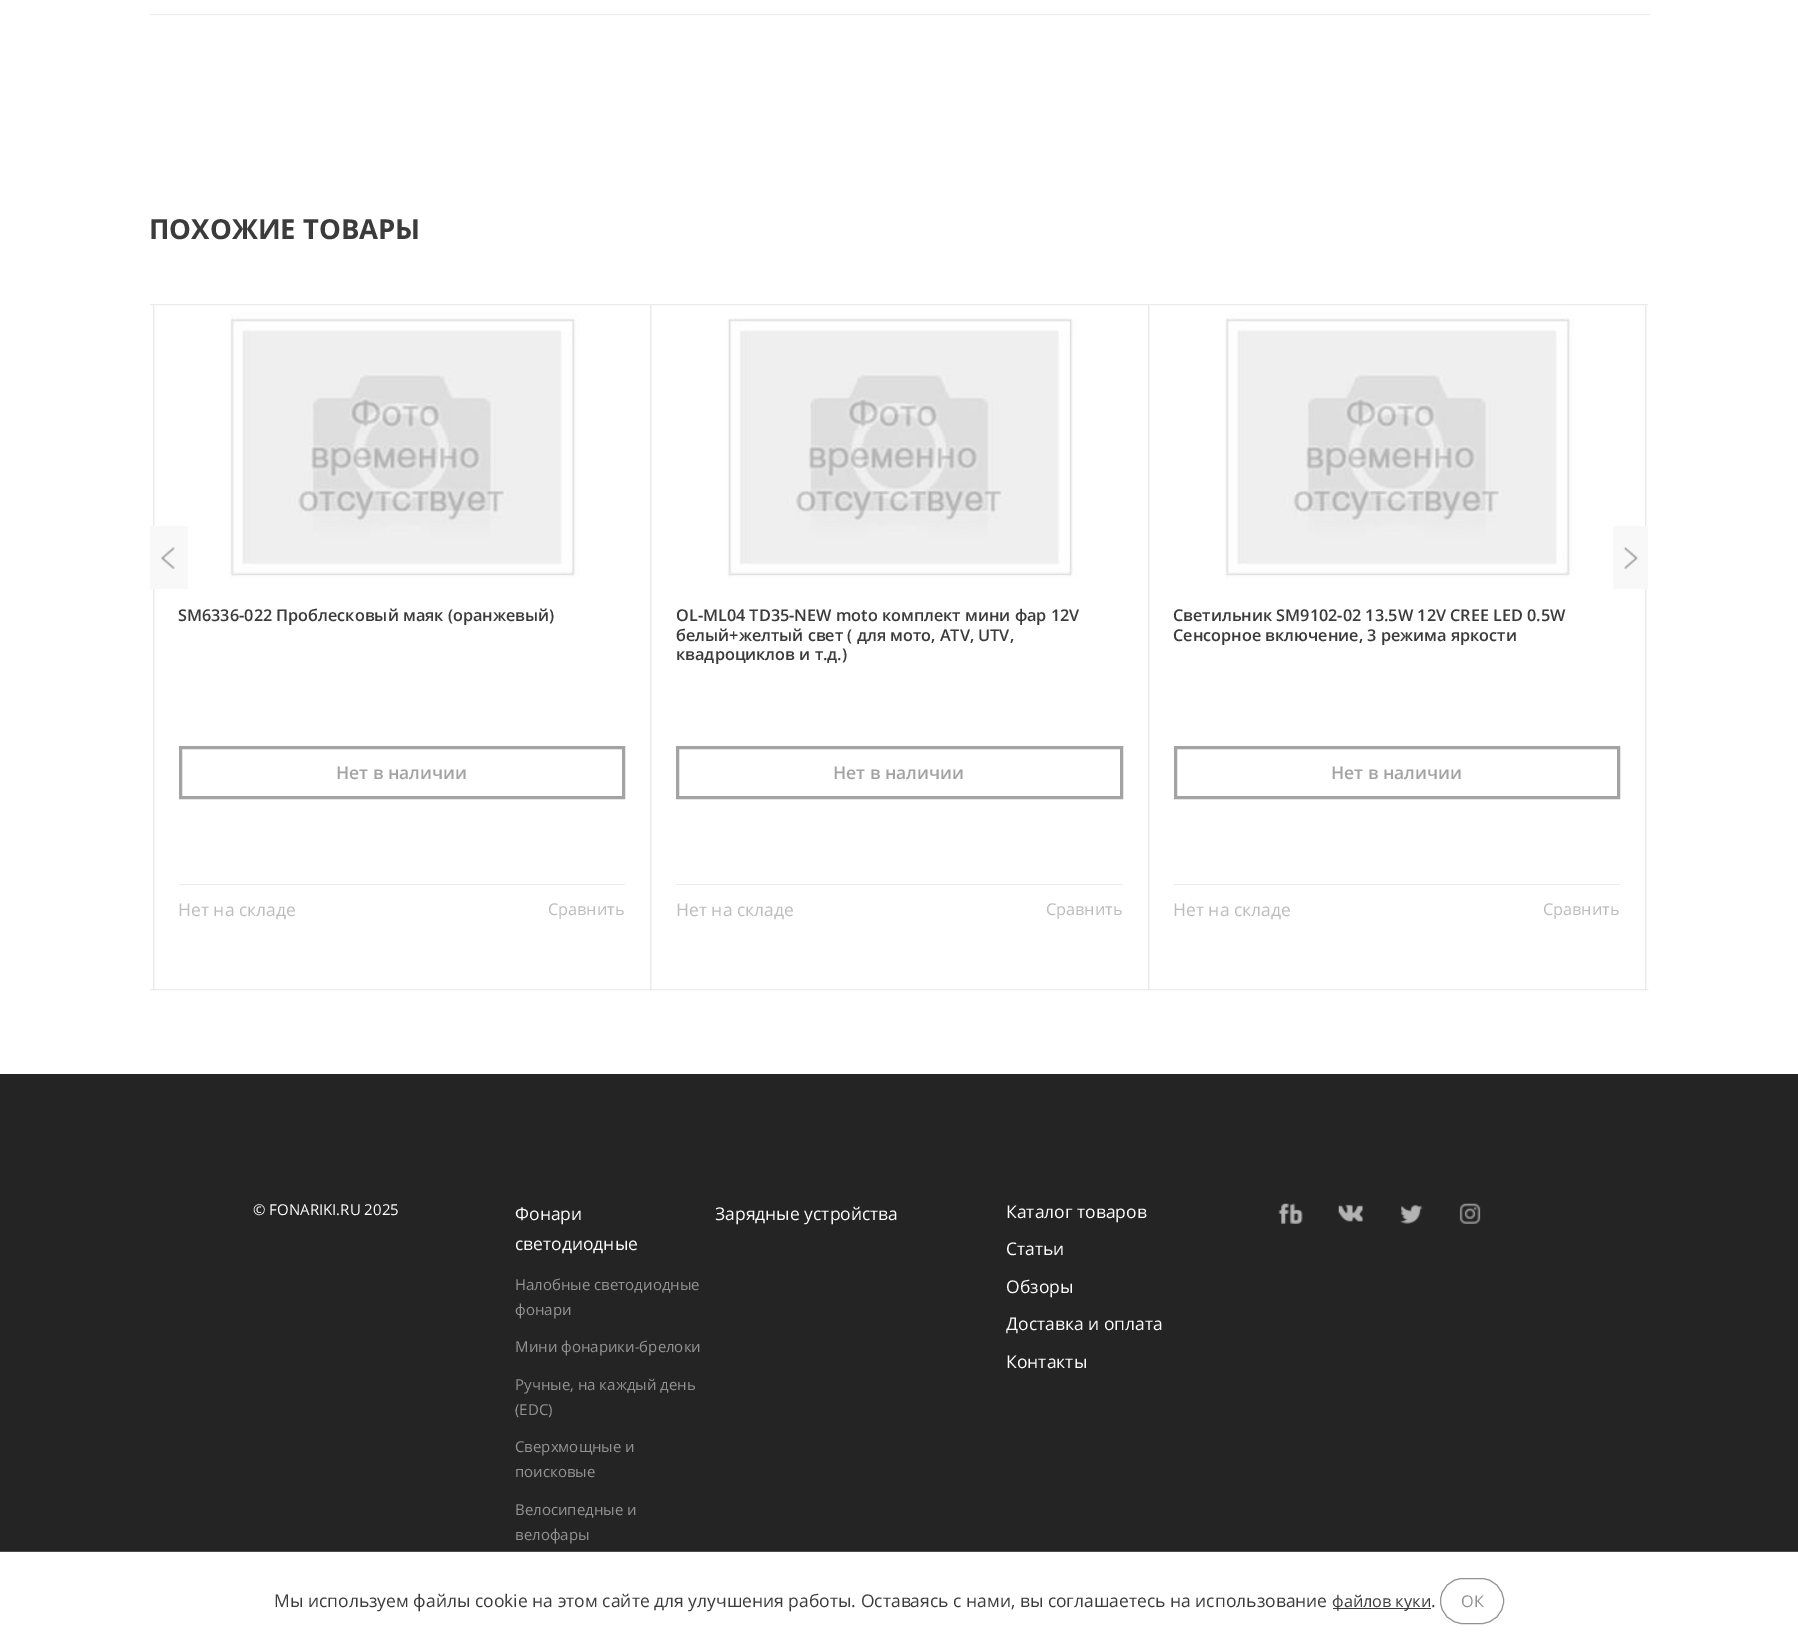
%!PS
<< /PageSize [1798 1648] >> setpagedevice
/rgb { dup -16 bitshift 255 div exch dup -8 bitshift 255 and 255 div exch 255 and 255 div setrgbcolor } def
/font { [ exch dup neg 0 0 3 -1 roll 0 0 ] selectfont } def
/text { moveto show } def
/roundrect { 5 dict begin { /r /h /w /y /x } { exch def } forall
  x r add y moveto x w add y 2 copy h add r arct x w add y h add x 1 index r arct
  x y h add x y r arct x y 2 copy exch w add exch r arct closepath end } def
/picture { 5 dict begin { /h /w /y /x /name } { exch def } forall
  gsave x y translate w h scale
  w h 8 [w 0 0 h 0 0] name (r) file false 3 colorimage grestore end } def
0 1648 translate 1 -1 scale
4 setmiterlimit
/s1 { /OpenSans-Bold 27.5 font 16#3B3B3B rgb } def
/s2 { /OpenSans-SemiBold 16.25 font 16#3B3B3B rgb } def
/s3 { /OpenSans-SemiBold 17.5 font 16#A3A3A3 rgb } def
/s4 { /OpenSans-Regular 17.5 font 16#BCBCBC rgb } def
/s5 { /OpenSans-Regular 16.25 font 16#BCBCBC rgb } def
/s6 { /OpenSans-Regular 15 font 16#FFFFFF rgb } def
/s7 { /OpenSans-Regular 17.5 font 16#FFFFFF rgb } def
/s8 { /OpenSans-Regular 15 font 16#929292 rgb } def
/s9 { /OpenSans-Regular 17.5 font 16#3B3B3B rgb } def
/s10 { /OpenSans-Regular 16.25 font 16#3B3B3B rgb } def
/s11 { /OpenSans-Regular 16.25 font 16#929292 rgb } def
16#FFFFFF rgb
0 0 1798 1648 rectfill
16#EBEBEB rgb
150 14 1500 1 rectfill
s1
(ПОХОЖИЕ ТОВАРЫ) 149 239 text
gsave
150 255 1500 756 rectclip
16#EBEBEB rgb
-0.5 304.5 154 685 rectstroke
grestore
16#EBEBEB rgb
153.5 304.5 497 685 rectstroke
16#F8F8F8 rgb
150 526 38 63 rectfill
(pic1.raw) 161 547 14 22 picture
16#EBEBEB rgb
650.5 304.5 498 685 rectstroke
1148.5 304.5 497 685 rectstroke
gsave
150 255 1500 756 rectclip
1645.5 304.5 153 685 rectstroke
grestore
16#F8F8F8 rgb
1613 526 35 63 rectfill
(pic2.raw) 1623 547 15 22 picture
16#FFFFFF rgb
1648 304 2 686 rectfill
(pic3.raw) 230 311 350 268 picture
s2
(SM6336-022 Проблесковый маяк \(оранжевый\)) 178 621 text
16#A3A3A3 rgb
3 setlinewidth
180.5 747.5 443 50 rectstroke
s3
(Нет в наличии) 336 779 text
16#EBEBEB rgb
179 884 446 1 rectfill
s4
(Нет на складе) 178 916 text
s5
(Сравнить) 548 915 text
(pic4.raw) 727 318 350 261 picture
s2
(OL-ML04 TD35-NEW moto комплект мини фар 12V) 676 621 text
(белый+желтый свет \( для мото, ATV, UTV,) 676 641 text
(квадроциклов и т.д.\)) 676 660 text
16#A3A3A3 rgb
677.5 747.5 444 50 rectstroke
s3
(Нет в наличии) 833 779 text
16#EBEBEB rgb
676 884 447 1 rectfill
s4
(Нет на складе) 676 916 text
s5
(Сравнить) 1046 915 text
(pic3.raw) 1225 311 350 268 picture
s2
(Светильник SM9102-02 13.5W 12V CREE LED 0.5W) 1173 621 text
(Сенсорное включение, 3 режима яркости) 1173 641 text
16#A3A3A3 rgb
1175.5 747.5 443 50 rectstroke
s3
(Нет в наличии) 1331 779 text
16#EBEBEB rgb
1174 884 446 1 rectfill
s4
(Нет на складе) 1173 916 text
s5
(Сравнить) 1543 915 text
16#242424 rgb
0 1074 1798 477 rectfill
s6
(© FONARIKI.RU 2025) 253 1215 text
s7
(Фонари) 515 1220 text
(светодиодные) 515 1250 text
s8
(Налобные светодиодные) 515 1290 text
(фонари) 515 1315 text
(Мини фонарики-брелоки) 515 1352 text
(Ручные, на каждый день) 515 1390 text
(\(EDC\)) 515 1415 text
(Сверхмощные и) 515 1452 text
(поисковые) 515 1477 text
(Велосипедные и) 515 1515 text
(велофары) 515 1540 text
s7
(Зарядные устройства) 715 1220 text
(Каталог товаров) 1006 1218 text
(Статьи) 1006 1255 text
(Обзоры) 1006 1293 text
(Доставка и оплата) 1006 1330 text
(Контакты) 1006 1368 text
(pic5.raw) 1278 1203 25 21 picture
(pic6.raw) 1338 1204 25 18 picture
(pic7.raw) 1400 1204 23 20 picture
(pic8.raw) 1459 1203 22 21 picture
16#FF0000 rgb
0 1551 1798 1 rectfill
s9
(Мы используем файлы cookie на этом сайте для улучшения работы. Оставаясь с нами, вы соглашаетесь на использование) 274 1607 text
1333 1608 98 1 rectfill
s10
(файлов куки) 1332 1607 text
s9
(.) 1431 1607 text
16#929292 rgb
1 setlinewidth
1440.5 1578.5 63 45 22.5 roundrect stroke
s11
(ОК) 1461 1607 text
showpage
